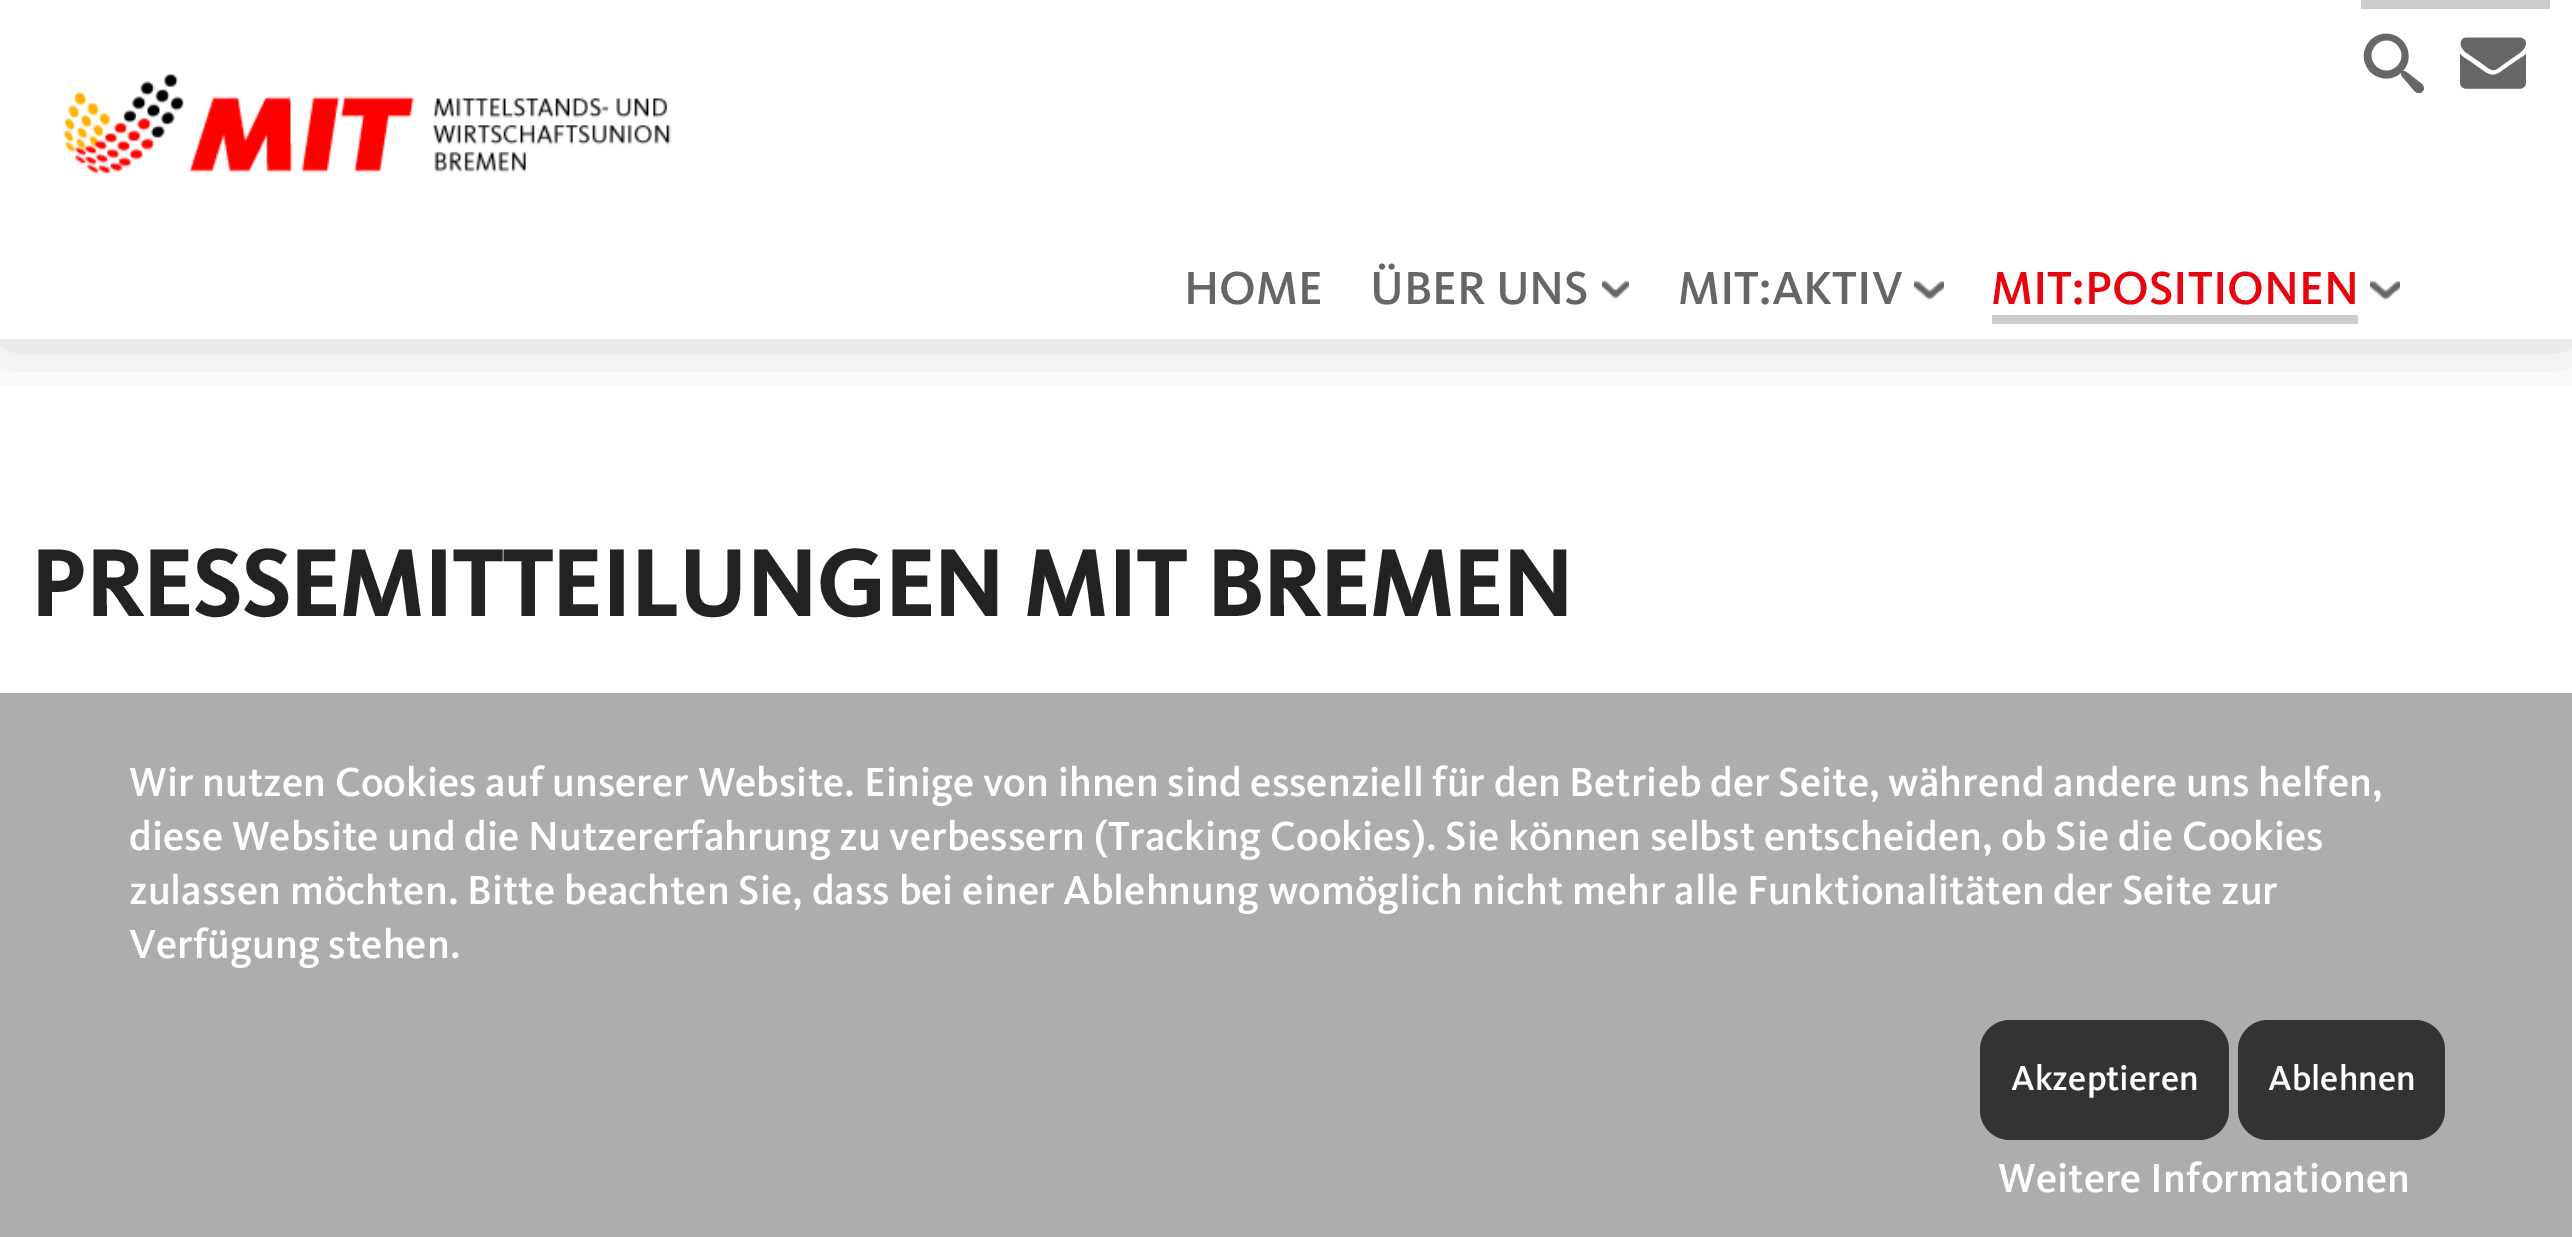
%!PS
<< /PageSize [2572 1237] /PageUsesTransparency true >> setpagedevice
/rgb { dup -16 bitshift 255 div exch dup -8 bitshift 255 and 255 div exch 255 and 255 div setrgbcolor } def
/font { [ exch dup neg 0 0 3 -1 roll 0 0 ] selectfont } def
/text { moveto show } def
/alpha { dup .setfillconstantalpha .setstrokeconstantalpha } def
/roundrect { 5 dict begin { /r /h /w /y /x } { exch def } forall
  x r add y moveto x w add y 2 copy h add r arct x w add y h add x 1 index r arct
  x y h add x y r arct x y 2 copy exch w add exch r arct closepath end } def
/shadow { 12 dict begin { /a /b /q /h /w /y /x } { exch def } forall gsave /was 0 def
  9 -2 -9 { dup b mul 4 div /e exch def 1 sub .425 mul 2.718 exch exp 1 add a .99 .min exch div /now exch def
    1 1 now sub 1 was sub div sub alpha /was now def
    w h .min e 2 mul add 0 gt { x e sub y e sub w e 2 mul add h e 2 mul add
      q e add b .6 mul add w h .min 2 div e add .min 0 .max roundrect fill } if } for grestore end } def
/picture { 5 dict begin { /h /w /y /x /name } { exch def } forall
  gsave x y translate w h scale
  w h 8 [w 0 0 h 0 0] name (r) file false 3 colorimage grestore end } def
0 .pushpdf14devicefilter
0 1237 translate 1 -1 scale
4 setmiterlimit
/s1 { /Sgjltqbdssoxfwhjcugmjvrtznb-Medium 48 font 16#666666 rgb } def
/s2 { /Sgjltqbdssoxfwhjcugmjvrtznb-Medium 48 font 16#E6050F rgb } def
/s3 { /Sgjltqbdssoxfwhjcugmjvrtznb-Bold 96 font 16#222222 rgb } def
/s4 { /Sgjltqbdssoxfwhjcugmjvrtznb-Medium 42 font 16#FFFFFF rgb } def
/s5 { /Sgjltqbdssoxfwhjcugmjvrtznb-Medium 36 font 16#FFFFFF rgb } def
16#FFFFFF rgb
0 0 2572 1237 rectfill
gsave
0 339 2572 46 rectclip
16#000000 rgb
0 6 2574 339 0 36 0.15 shadow
grestore
16#CCCCCC rgb
2361 0 189 9 rectfill
(pic1.raw) 2363 33 61 60 picture
(pic2.raw) 2460 37 66 52 picture
(pic3.raw) 63 73 608 102 picture
s1
(HOME) 1184 304 text
(ÜBER UNS) 1370 304 text
(pic4.raw) 1602 280 27 19 picture
(MIT:AKTIV) 1678 304 text
(pic5.raw) 1914 281 30 19 picture
s2
(MIT:POSITIONEN) 1991 304 text
16#CCCCCC rgb
1992 315 366 9 rectfill
(pic5.raw) 2370 281 30 19 picture
s3
(PRESSEMITTEILUNGEN MIT BREMEN) 30 616 text
16#ADADAD rgb
0 693 2572 544 rectfill
s4
(Wir nutzen Cookies auf unserer Website. Einige von ihnen sind essenziell für den Betrieb der Seite, während andere uns helfen,) 129 796 text
(diese Website und die Nutzererfahrung zu verbessern \(Tracking Cookies\). Sie können selbst entscheiden, ob Sie die Cookies) 129 850 text
(zulassen möchten. Bitte beachten Sie, dass bei einer Ablehnung womöglich nicht mehr alle Funktionalitäten der Seite zur) 129 904 text
(Verfügung stehen.) 129 958 text
16#333333 rgb
1980 1020 249 120 30 roundrect fill
s5
(Akzeptieren) 2011 1090 text
16#333333 rgb
2238 1020 207 120 30 roundrect fill
s5
(Ablehnen) 2268 1090 text
s4
(Weitere Informationen) 1998 1192 text
.poppdf14devicefilter showpage
